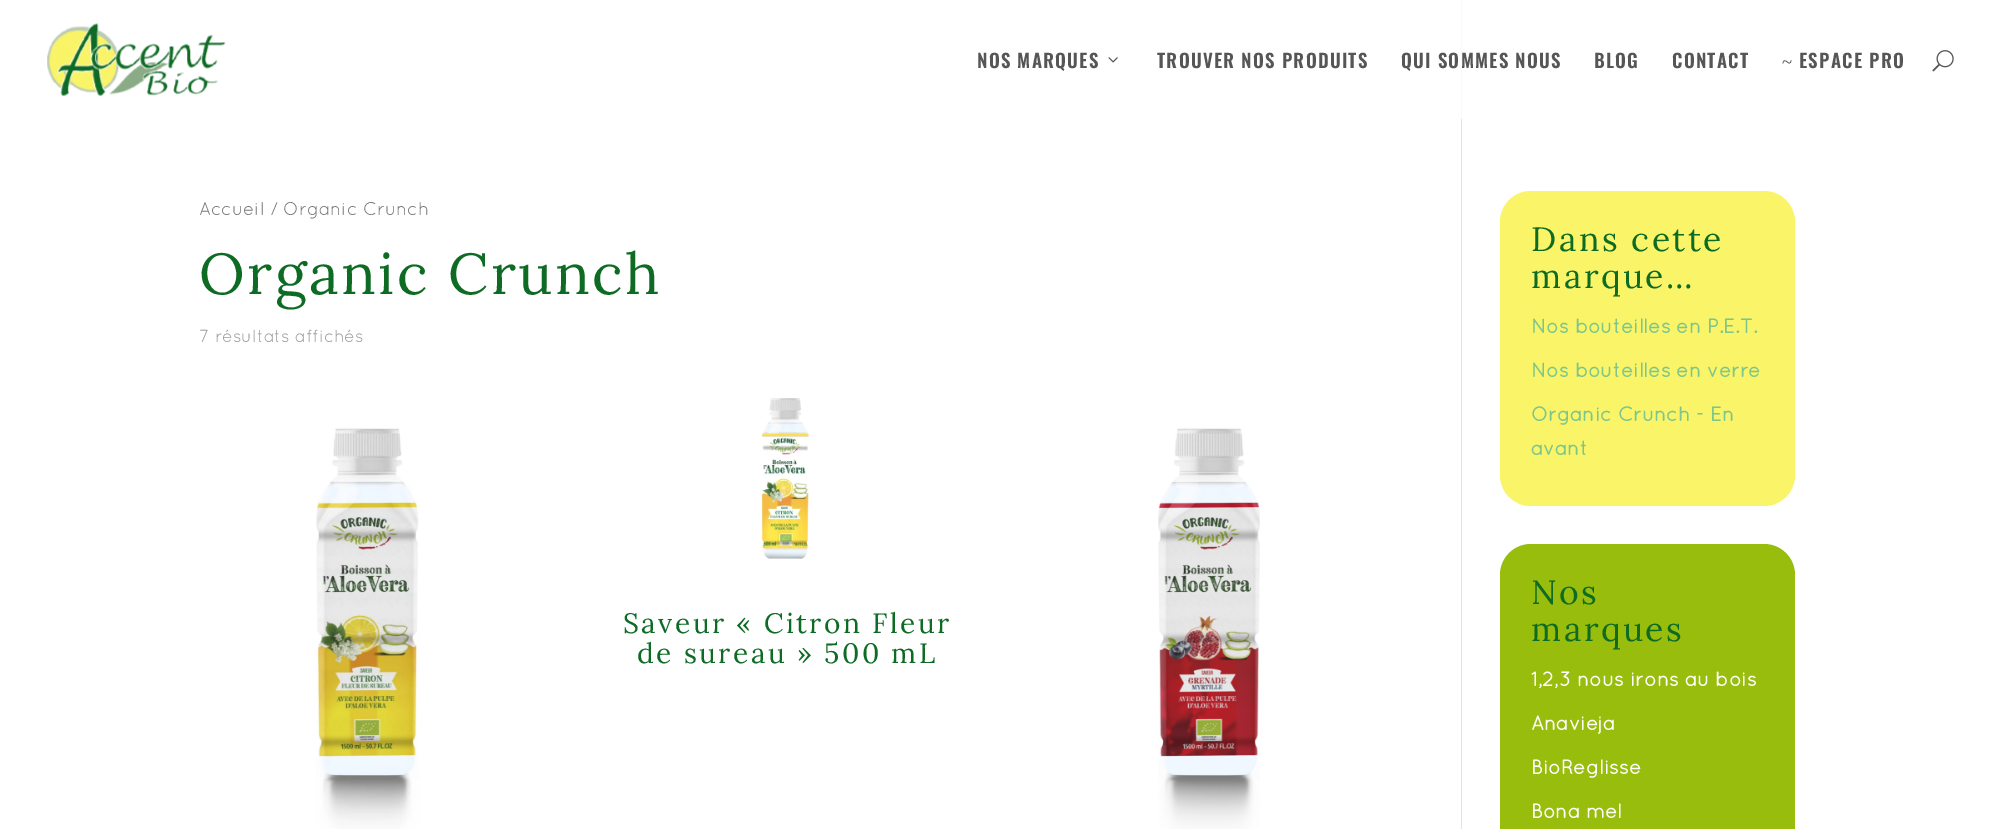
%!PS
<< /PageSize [1995 829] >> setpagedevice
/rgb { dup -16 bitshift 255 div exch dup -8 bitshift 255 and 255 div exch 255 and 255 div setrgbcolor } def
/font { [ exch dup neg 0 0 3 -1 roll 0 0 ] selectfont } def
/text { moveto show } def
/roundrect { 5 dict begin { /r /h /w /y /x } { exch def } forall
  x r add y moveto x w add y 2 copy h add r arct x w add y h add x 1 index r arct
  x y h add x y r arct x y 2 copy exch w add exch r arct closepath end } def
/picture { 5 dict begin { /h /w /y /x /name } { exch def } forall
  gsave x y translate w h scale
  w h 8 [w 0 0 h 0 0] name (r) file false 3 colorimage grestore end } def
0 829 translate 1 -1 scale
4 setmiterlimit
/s1 { /Quicksand-Regular 18.4 font 16#767676 rgb } def
/s2 { /Quicksand-Regular 17.5 font 16#999999 rgb } def
/s3 { /Quicksand-Bold 20 font 16#7CC68D rgb } def
/s4 { /Quicksand-Bold 20 font 16#FFFFFF rgb } def
16#FFFFFF rgb
0 0 1995 829 rectfill
(pic1.raw) 47 23 179 74 picture
/Oswald-SemiBold 18.75 font
16#565656 rgb
977 68 moveto 1.25 0 (NOS MARQUES) ashow
(pic2.raw) 1108 57 10 6 picture
1157 68 moveto 1.25 0 (TROUVER NOS PRODUITS) ashow
16#F9F9F9 rgb
1461 0 1 119 rectfill
16#565656 rgb
1401 68 moveto 1.25 0 (QUI SOMMES NOUS) ashow
1594 68 moveto 1.25 0 (BLOG) ashow
1672 68 moveto 1.25 0 (CONTACT) ashow
/LiberationSerif-Regular 18.75 font
1782 68 moveto 1.25 0 (~) ashow
/Oswald-SemiBold 18.75 font
1799 68 moveto 1.25 0 (ESPACE PRO) ashow
(pic3.raw) 1932 50 22 22 picture
16#E2E2E2 rgb
1461 119 1 710 rectfill
s1
(Accueil / Organic Crunch) 199 215 text
/Lora-Regular 57.5 font
16#0E6B24 rgb
199 294 moveto 2.5 0 (Organic Crunch) ashow
s2
(7 résultats affichés) 199 342 text
(pic4.raw) 316 428 104 401 picture
(pic5.raw) 761 398 49 161 picture
/Lora-Regular 28 font
16#0E6B24 rgb
623 633 moveto 2.5 0 (Saveur « Citron Fleur) ashow
637 663 moveto 2.5 0 (de sureau » 500 mL) ashow
(pic6.raw) 1158 428 102 401 picture
16#FAF468 rgb
1500 191 295 315 31 roundrect fill
/Lora-Regular 33.75 font
16#0E6B24 rgb
1531 251 moveto 2.5 0 (Dans cette) ashow
1531 288 moveto 2.5 0 (marque…) ashow
s3
(Nos bouteilles en P.E.T.) 1531 333 text
(Nos bouteilles en verre) 1531 377 text
(Organic Crunch - En) 1531 421 text
(avant) 1531 455 text
16#98BD0D rgb
1500 544 295 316 31 roundrect fill
/Lora-Regular 33.75 font
16#0E6B24 rgb
1531 604 moveto 2.5 0 (Nos) ashow
1531 641 moveto 2.5 0 (marques) ashow
s4
(1,2,3 nous irons au bois) 1531 686 text
(Anavieja) 1531 730 text
(BioReglisse) 1531 774 text
(Bona mel) 1531 818 text
showpage
